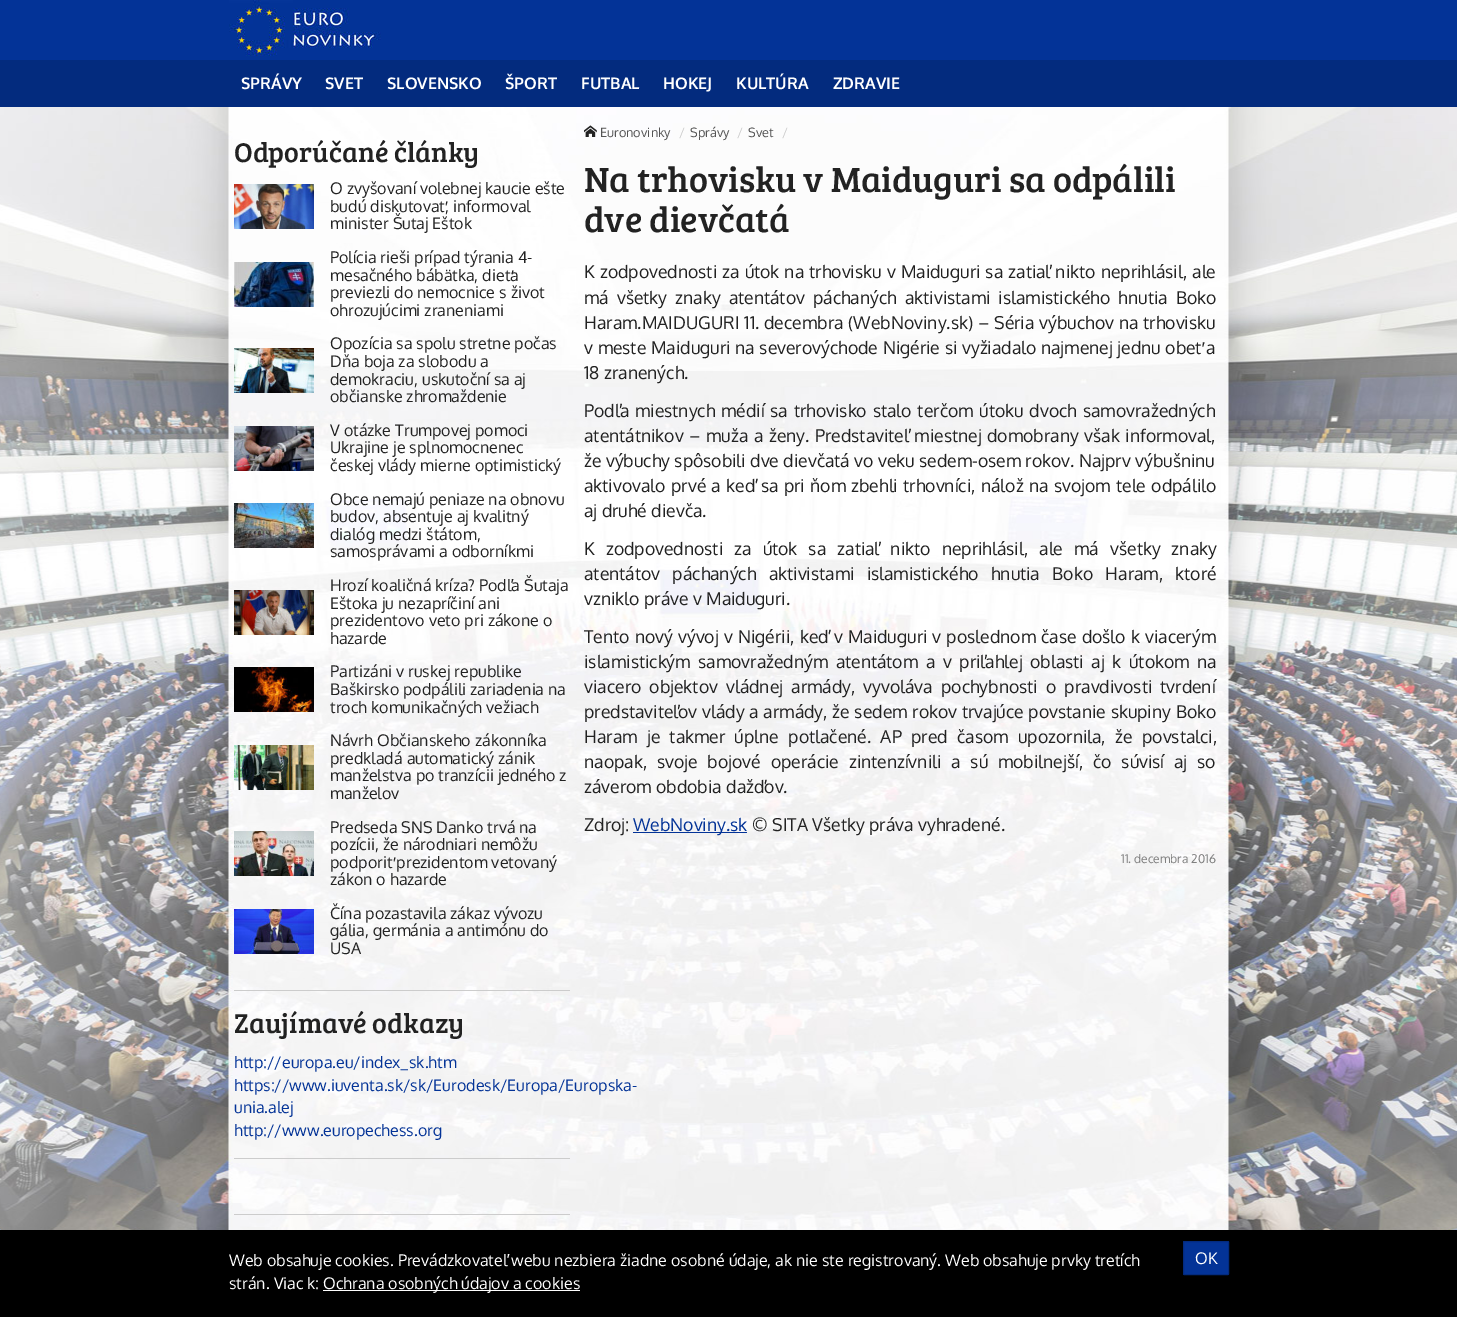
%!PS
<< /PageSize [1457 1317] >> setpagedevice
/rgb { dup -16 bitshift 255 div exch dup -8 bitshift 255 and 255 div exch 255 and 255 div setrgbcolor } def
/font { [ exch dup neg 0 0 3 -1 roll 0 0 ] selectfont } def
/text { moveto show } def
/roundrect { 5 dict begin { /r /h /w /y /x } { exch def } forall
  x r add y moveto x w add y 2 copy h add r arct x w add y h add x 1 index r arct
  x y h add x y r arct x y 2 copy exch w add exch r arct closepath end } def
/picture { 5 dict begin { /h /w /y /x /name } { exch def } forall
  gsave x y translate w h scale
  w h 8 [w 0 0 h 0 0] name (r) file false 3 colorimage grestore end } def
0 1317 translate 1 -1 scale
4 setmiterlimit
/s1 { /Oxygen-Bold 16 font 16#FFFFFF rgb } def
/s2 { /BreeSerif-Regular 28 font 16#222222 rgb } def
/s3 { /Oxygen-Regular 16 font 16#222222 rgb } def
/s4 { /Oxygen-Regular 16 font 16#033397 rgb } def
/s5 { /Oxygen-Regular 12.75 font 16#555555 rgb } def
/s6 { /Oxygen-Regular 12.75 font 16#CCCCCC rgb } def
/s7 { /BreeSerif-Regular 36 font 16#222222 rgb } def
/s8 { /Oxygen-Regular 17.6 font 16#222222 rgb } def
/s9 { /Oxygen-Regular 17.6 font 16#033397 rgb } def
/s10 { /Oxygen-Regular 12 font 16#808080 rgb } def
/s11 { /Oxygen-Regular 16 font 16#FFFFFF rgb } def
16#FFFFFF rgb
0 0 1457 1317 rectfill
(pic1.raw) 0 107 1457 1123 picture
16#033397 rgb
0 0 1457 60 rectfill
(pic2.raw) 229 0 152 56 picture
16#032B7E rgb
0 60 1457 47 rectfill
s1
(SPRÁVY) 241 89 text
(SVET) 325 89 text
(SLOVENSKO) 387 89 text
(ŠPORT) 505 89 text
(FUTBAL) 581 89 text
(HOKEJ) 663 89 text
(KULTÚRA) 736 89 text
(ZDRAVIE) 833 89 text
16#CCCCCC rgb
234 990 336 1 rectfill
s2
(Odporúčané články) 234 162 text
(pic3.raw) 234 184 80 45 picture
s3
(O zvyšovaní volebnej kaucie ešte) 330 194 text
(budú diskutovať, informoval) 330 212 text
(minister Šutaj Eštok) 330 229 text
(pic4.raw) 234 262 80 45 picture
(Polícia rieši prípad týrania 4-) 330 263 text
(mesačného bábätka, dieťa) 330 281 text
(previezli do nemocnice s život) 330 298 text
(ohrozujúcimi zraneniami) 330 316 text
(pic5.raw) 234 348 80 45 picture
(Opozícia sa spolu stretne počas) 330 349 text
(Dňa boja za slobodu a) 330 367 text
(demokraciu, uskutoční sa aj) 330 385 text
(občianske zhromaždenie) 330 402 text
(pic6.raw) 234 426 80 45 picture
(V otázke Trumpovej pomoci) 330 436 text
(Ukrajine je splnomocnenec) 330 453 text
(českej vlády mierne optimistický) 330 471 text
(pic7.raw) 234 503 80 45 picture
(Obce nemajú peniaze na obnovu) 330 505 text
(budov, absentuje aj kvalitný) 330 522 text
(dialóg medzi štátom,) 330 540 text
(samosprávami a odborníkmi) 330 557 text
(pic8.raw) 234 590 80 45 picture
(Hrozí koaličná kríza? Podľa Šutaja) 330 591 text
(Eštoka ju nezapríčiní ani) 330 609 text
(prezidentovo veto pri zákone o) 330 626 text
(hazarde) 330 644 text
(pic9.raw) 234 667 80 45 picture
(Partizáni v ruskej republike) 330 677 text
(Baškirsko podpálili zariadenia na) 330 695 text
(troch komunikačných vežiach) 330 713 text
(pic10.raw) 234 745 80 45 picture
(Návrh Občianskeho zákonníka) 330 746 text
(predkladá automatický zánik) 330 764 text
(manželstva po tranzícii jedného z) 330 781 text
(manželov) 330 799 text
(pic11.raw) 234 831 80 45 picture
(Predseda SNS Danko trvá na) 330 833 text
(pozícii, že národniari nemôžu) 330 850 text
(podporiť prezidentom vetovaný) 330 868 text
(zákon o hazarde) 330 885 text
(pic12.raw) 234 909 80 45 picture
(Čína pozastavila zákaz vývozu) 330 919 text
(gália, germánia a antimónu do) 330 936 text
(USA) 330 954 text
16#CCCCCC rgb
234 1158 336 1 rectfill
s2
(Zaujímavé odkazy) 234 1033 text
s4
(http://europa.eu/index_sk.htm) 234 1068 text
(https://www.iuventa.sk/sk/Eurodesk/Europa/Europska-) 234 1091 text
(unia.alej) 234 1113 text
(http://www.europechess.org) 234 1136 text
16#CCCCCC rgb
234 1214 336 1 rectfill
(pic13.raw) 584 125 13 12 picture
s5
(Euronovinky) 600 137 text
s6
(/) 679 137 text
s5
(Správy) 690 137 text
s6
(/) 737 137 text
s5
(Svet) 748 137 text
s6
(/) 782 137 text
s7
(Na trhovisku v Maiduguri sa odpálili) 584 192 text
(dve dievčatá) 584 232 text
/Oxygen-Regular 17.6 font
584 278 moveto 0.75 0 32 (K zodpovednosti za útok na trhovisku v Maiduguri sa zatiaľ nikto neprihlásil, ale) widthshow
584 304 moveto 3.75 0 32 (má všetky znaky atentátov páchaných aktivistami islamistického hnutia Boko) widthshow
584 329 moveto 0.5 0 32 (Haram.MAIDUGURI 11. decembra \(WebNoviny.sk\) – Séria výbuchov na trhovisku) widthshow
584 354 moveto 0.25 0 32 (v meste Maiduguri na severovýchode Nigérie si vyžiadalo najmenej jednu obeť a) widthshow
(18 zranených.) 584 379 text
584 417 moveto 1.5 0 32 (Podľa miestnych médií sa trhovisko stalo terčom útoku dvoch samovražedných) widthshow
584 442 moveto 1.25 0 32 (atentátnikov – muža a ženy. Predstaviteľ miestnej domobrany však informoval,) widthshow
(že výbuchy spôsobili dve dievčatá vo veku sedem-osem rokov. Najprv výbušninu) 584 467 text
584 492 moveto 1 0 32 (aktivovalo prvé a keď sa pri ňom zbehli trhovníci, nálož na svojom tele odpálilo) widthshow
(aj druhé dievča.) 584 517 text
584 555 moveto 6.75 0 32 (K zodpovednosti za útok sa zatiaľ nikto neprihlásil, ale má všetky znaky) widthshow
584 580 moveto 8 0 32 (atentátov páchaných aktivistami islamistického hnutia Boko Haram, ktoré) widthshow
(vzniklo práve v Maiduguri.) 584 605 text
584 643 moveto 0.75 0 32 (Tento nový vývoj v Nigérii, keď v Maiduguri v poslednom čase došlo k viacerým) widthshow
584 668 moveto 3.25 0 32 (islamistickým samovražedným atentátom a v priľahlej oblasti aj k útokom na) widthshow
584 693 moveto 3.75 0 32 (viacero objektov vládnej armády, vyvoláva pochybnosti o pravdivosti tvrdení) widthshow
584 718 moveto 0.4 0 32 (predstaviteľov vlády a armády, že sedem rokov trvajúce povstanie skupiny Boko) widthshow
584 743 moveto 5 0 32 (Haram je takmer úplne potlačené. AP pred časom upozornila, že povstalci,) widthshow
584 768 moveto 5.5 0 32 (naopak, svoje bojové operácie zintenzívnili a sú mobilnejší, čo súvisí aj so) widthshow
(záverom obdobia dažďov.) 584 793 text
(Zdroj:) 584 831 text
16#033397 rgb
633 832 114 1 rectfill
(WebNoviny.sk) 633 831 text
s8
(© SITA Všetky práva vyhradené.) 752 831 text
s10
(11. decembra 2016) 1121 863 text
16#000000 rgb
0 1230 1457 87 rectfill
s11
(Web obsahuje cookies. Prevádzkovateľ webu nezbiera žiadne osobné údaje, ak nie ste registrovaný. Web obsahuje prvky tretích) 229 1266 text
(strán. Viac k:) 229 1289 text
323 1290 257 1 rectfill
(Ochrana osobných údajov a cookies) 323 1289 text
16#033397 rgb
1183.5 1241.5 45 33 0.5 roundrect gsave fill grestore
16#032B7E rgb
stroke
s11
(OK) 1195 1264 text
showpage
